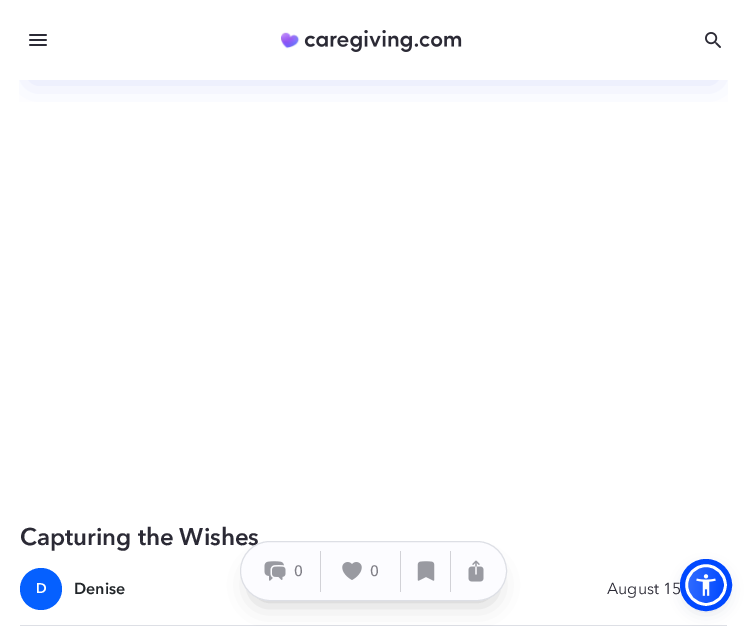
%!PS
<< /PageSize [747 626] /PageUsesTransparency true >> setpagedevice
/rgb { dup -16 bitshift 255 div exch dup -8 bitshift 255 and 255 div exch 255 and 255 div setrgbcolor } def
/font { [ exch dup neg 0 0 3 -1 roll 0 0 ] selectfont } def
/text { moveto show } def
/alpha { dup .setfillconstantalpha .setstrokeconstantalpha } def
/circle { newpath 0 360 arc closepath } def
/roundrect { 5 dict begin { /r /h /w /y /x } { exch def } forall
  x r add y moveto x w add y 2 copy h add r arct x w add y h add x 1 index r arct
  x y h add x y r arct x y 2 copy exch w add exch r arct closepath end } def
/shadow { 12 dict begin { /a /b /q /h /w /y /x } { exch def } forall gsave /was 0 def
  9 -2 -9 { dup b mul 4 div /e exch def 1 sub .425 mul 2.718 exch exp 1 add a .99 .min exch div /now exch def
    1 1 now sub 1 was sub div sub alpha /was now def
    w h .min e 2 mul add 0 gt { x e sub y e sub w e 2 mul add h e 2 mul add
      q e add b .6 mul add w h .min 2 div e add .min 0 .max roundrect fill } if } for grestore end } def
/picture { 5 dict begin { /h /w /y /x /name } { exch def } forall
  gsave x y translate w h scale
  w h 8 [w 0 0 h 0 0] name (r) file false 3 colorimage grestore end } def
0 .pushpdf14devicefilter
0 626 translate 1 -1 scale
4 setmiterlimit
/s1 { /AvenirNext-SemiBold 24 font 16#2B2A35 rgb } def
/s2 { /AvenirNext-Medium 15 font 16#7F7E86 rgb } def
/s3 { /AvenirNext-SemiBold 14 font 16#FFFFFF rgb } def
/s4 { /AvenirNext-SemiBold 16 font 16#212529 rgb } def
/s5 { /AvenirNext-Regular 16 font 16#2B2A35 rgb } def
16#FFFFFF rgb
0 0 747 626 rectfill
gsave
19 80 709 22 rectclip
16#4E61ED rgb
30 62 687 20 0 16 0.2 shadow
grestore
(pic1.raw) 29 34 18 12 picture
(pic2.raw) 281 32 19 17 picture
(pic3.raw) 304 30 158 22 picture
(pic4.raw) 705 32 16 16 picture
s1
(Capturing the Wishes) 20 545 text
16#DDDFE5 rgb
20 625 707 1 rectfill
16#000000 rgb
255 570 237 30 15 12.5 0.25 shadow
16#FCFCFF rgb
240.5 541.5 266 59 29.5 roundrect gsave fill grestore
16#DDDFE5 rgb
stroke
16#D2D2D7 rgb
320 551 1 41 rectfill
(pic5.raw) 264 561 22 20 picture
s2
(0) 294 576 text
16#D2D2D7 rgb
400 551 1 41 rectfill
(pic6.raw) 342 562 20 18 picture
s2
(0) 370 576 text
16#D2D2D7 rgb
450 551 1 41 rectfill
(pic7.raw) 417 561 18 20 picture
(pic8.raw) 468 560 16 22 picture
16#0560FF rgb
41 589 21 circle fill
s3
(D) 36 593 text
s4
(Denise) 74 594 text
s5
(August 15) 607 594 text
16#5D6494 rgb
685 566 42 42 21 2 0.2 shadow
16#252C61 rgb
685 569 42 42 21 7.5 0.15 shadow
gsave
685 564 42 42 21 roundrect clip newpath
gsave 688 567 moveto 724 567 lineto 724 603 lineto 688 603 lineto closepath clip newpath
<< /ShadingType 2 /ColorSpace /DeviceRGB /Coords [686 583 726 587] /Extend [true true] /Function << /FunctionType 2 /Domain [0 1] /C0 [0.196 0.424 1] /C1 [0 0.282 1] /N 1 >> >> shfill grestore
grestore
16#FFFFFF rgb
3 setlinewidth
706 585 19.5 circle stroke
16#0048FF rgb
5 setlinewidth
706 585 23.5 circle stroke
(pic9.raw) 696 574 20 22 picture
.poppdf14devicefilter showpage
